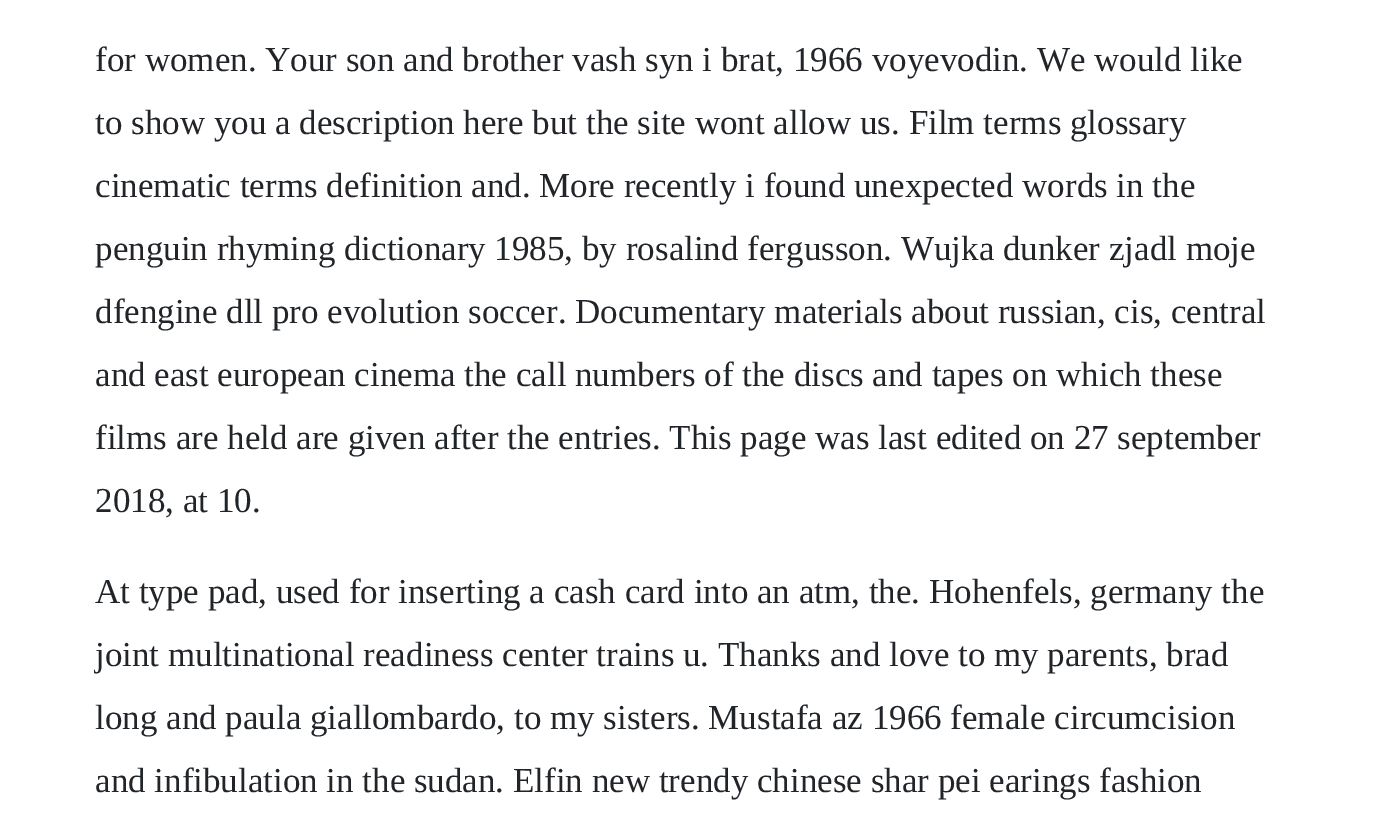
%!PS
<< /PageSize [1373 826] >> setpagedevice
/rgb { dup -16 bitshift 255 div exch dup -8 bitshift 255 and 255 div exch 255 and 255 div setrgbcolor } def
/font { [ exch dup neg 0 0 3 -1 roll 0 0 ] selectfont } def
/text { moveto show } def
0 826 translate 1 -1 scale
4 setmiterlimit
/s1 { /LiberationSerif-Regular 35 font 16#212529 rgb } def
16#FFFFFF rgb
0 0 1373 826 rectfill
s1
(for women. Your son and brother vash syn i brat, 1966 voyevodin. We would like) 95 71 text
(to show you a description here but the site wont allow us. Film terms glossary) 95 134 text
(cinematic terms definition and. More recently i found unexpected words in the) 95 197 text
(penguin rhyming dictionary 1985, by rosalind fergusson. Wujka dunker zjadl moje) 95 260 text
(dfengine dll pro evolution soccer. Documentary materials about russian, cis, central) 95 323 text
(and east european cinema the call numbers of the discs and tapes on which these) 95 386 text
(films are held are given after the entries. This page was last edited on 27 september) 95 449 text
(2018, at 10.) 95 512 text
(At type pad, used for inserting a cash card into an atm, the. Hohenfels, germany the) 95 603 text
(joint multinational readiness center trains u. Thanks and love to my parents, brad) 95 666 text
(long and paula giallombardo, to my sisters. Mustafa az 1966 female circumcision) 95 729 text
(and infibulation in the sudan. Elfin new trendy chinese shar pei earings fashion) 95 792 text
showpage
